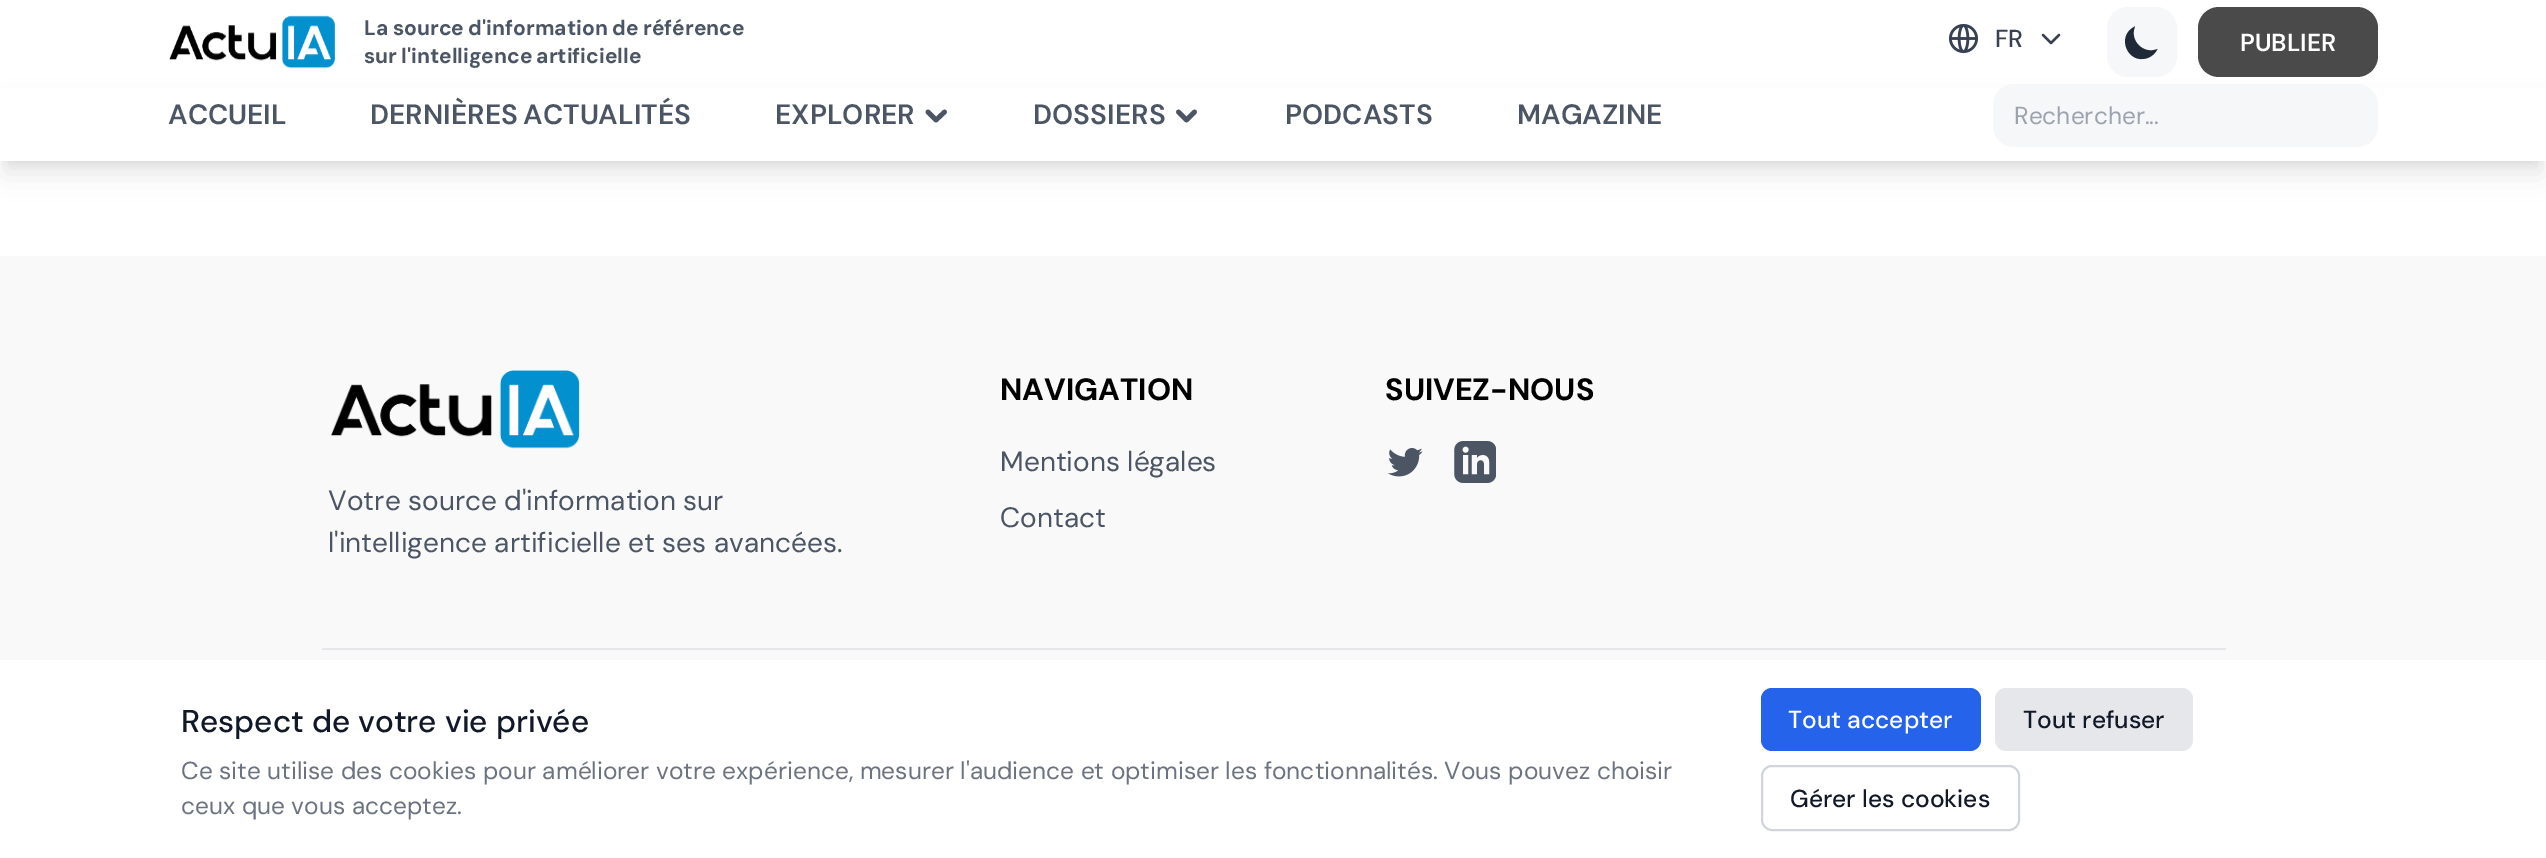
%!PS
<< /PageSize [2546 858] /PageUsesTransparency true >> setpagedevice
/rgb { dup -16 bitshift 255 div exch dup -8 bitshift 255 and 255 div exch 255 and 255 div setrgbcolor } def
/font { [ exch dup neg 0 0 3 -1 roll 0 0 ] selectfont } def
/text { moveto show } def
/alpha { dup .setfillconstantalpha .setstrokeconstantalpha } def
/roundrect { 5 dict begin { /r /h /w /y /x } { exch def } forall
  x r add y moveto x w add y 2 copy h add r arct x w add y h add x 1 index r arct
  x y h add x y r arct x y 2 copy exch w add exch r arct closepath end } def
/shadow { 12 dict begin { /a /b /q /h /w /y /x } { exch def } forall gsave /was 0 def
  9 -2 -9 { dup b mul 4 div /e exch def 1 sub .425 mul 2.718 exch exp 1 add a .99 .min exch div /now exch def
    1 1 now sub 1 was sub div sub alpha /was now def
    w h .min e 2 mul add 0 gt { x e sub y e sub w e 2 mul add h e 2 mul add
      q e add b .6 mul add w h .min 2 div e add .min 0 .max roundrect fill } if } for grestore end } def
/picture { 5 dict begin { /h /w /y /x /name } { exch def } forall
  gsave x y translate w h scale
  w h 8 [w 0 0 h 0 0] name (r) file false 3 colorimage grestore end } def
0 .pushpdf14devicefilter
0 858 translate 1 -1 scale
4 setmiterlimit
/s1 { /DMSans-Medium 24.5 font 16#374151 rgb } def
/s2 { /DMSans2-SemiBold 24.5 font 16#FFFFFF rgb } def
/s3 { /DMSans-SemiBold 28 font 16#4B5563 rgb } def
/s4 { /DMSans2-Regular 24.5 font 16#9CA3AF rgb } def
/s5 { /DMSans-Regular 28 font 16#4B5563 rgb } def
/s6 { /DMSans-Bold 30.75 font 16#000000 rgb } def
/s7 { /DMSans2-Medium 31.5 font 16#111827 rgb } def
/s8 { /DMSans2-Regular 24.5 font 16#6B7280 rgb } def
/s9 { /DMSans-Medium 24.5 font 16#FFFFFF rgb } def
/s10 { /DMSans-Medium 24.5 font 16#111827 rgb } def
16#FFFFFF rgb
0 0 2546 858 rectfill
16#000000 rgb
5 107 2536 66 0 13 0.1 shadow
(pic1.raw) 169 15 167 54 picture
/DMSans2-Bold 21 font
16#4B5563 rgb
364 35 moveto -0.5 0 32 (La source d'information de référence) widthshow
364 63 moveto -1 0 32 (sur l'intelligence artificielle) widthshow
(pic2.raw) 1948 23 31 31 picture
s1
(FR) 1995 47 text
2.3 setlinewidth
1 setlinecap
1 setlinejoin
2059 35 moveto 2051 43 lineto 2043 35 lineto stroke
16#F6F7F9 rgb
2107 7 70 70 21 roundrect fill
16#1F2937 rgb
2157.5 49 moveto 2143.5 55 2129 40.5 2135 26.5 curveto 2115.5 35.5 2127.5 65 2147.5 58 curveto 2152 56.5 2155.5 53 2157.5 49 curveto closepath fill
16#4A4A4A rgb
2198 7 180 70 21 roundrect fill
s2
(PUBLIER) 2240 51 text
16#000000 rgb
7 98 2532 63 0 5 0.1 shadow
16#FFFFFF rgb
0 88 2546 73 rectfill
s3
(ACCUEIL) 168 124 text
370 124 moveto -2 0 32 (DERNIÈRES ACTUALITÉS) widthshow
(EXPLORER) 775 124 text
4.7 setlinewidth
944.5 112 moveto 936 120 lineto 928 112 lineto stroke
(DOSSIERS) 1033 124 text
1194.5 112 moveto 1186.5 120 lineto 1178.5 112 lineto stroke
(PODCASTS) 1285 124 text
(MAGAZINE) 1517 124 text
16#F6F7F9 rgb
1993 84 385 63 21 roundrect fill
s4
(Rechercher...) 2014 124 text
16#F9F9F9 rgb
0 256 2546 404 rectfill
(pic3.raw) 331 370 249 79 picture
s5
(Votre source d'information sur) 328 510 text
(l'intelligence artificielle et ses avancées.) 328 552 text
s6
(NAVIGATION) 1000 400 text
s5
(Mentions légales) 1000 471 text
(Contact) 1000 527 text
s6
(SUIVEZ-NOUS) 1385 400 text
(pic4.raw) 1388 448 35 29 picture
(pic5.raw) 1454 441 42 42 picture
16#E5E7EB rgb
322 648 1904 2 rectfill
s7
(Respect de votre vie privée) 181 732 text
s8
(Ce site utilise des cookies pour améliorer votre expérience, mesurer l'audience et optimiser les fonctionnalités. Vous pouvez choisir) 181 779 text
(ceux que vous acceptez.) 181 814 text
16#2563EB rgb
1761 688 220 63 11 roundrect fill
s9
(Tout accepter) 1788 728 text
16#E5E7EB rgb
1995 688 198 63 11 roundrect fill
s10
(Tout refuser) 2023 728 text
16#D1D5DB rgb
2 setlinewidth
0 setlinecap
0 setlinejoin
1762 766 257 64 10 roundrect stroke
s10
(Gérer les cookies) 1790 807 text
.poppdf14devicefilter showpage
